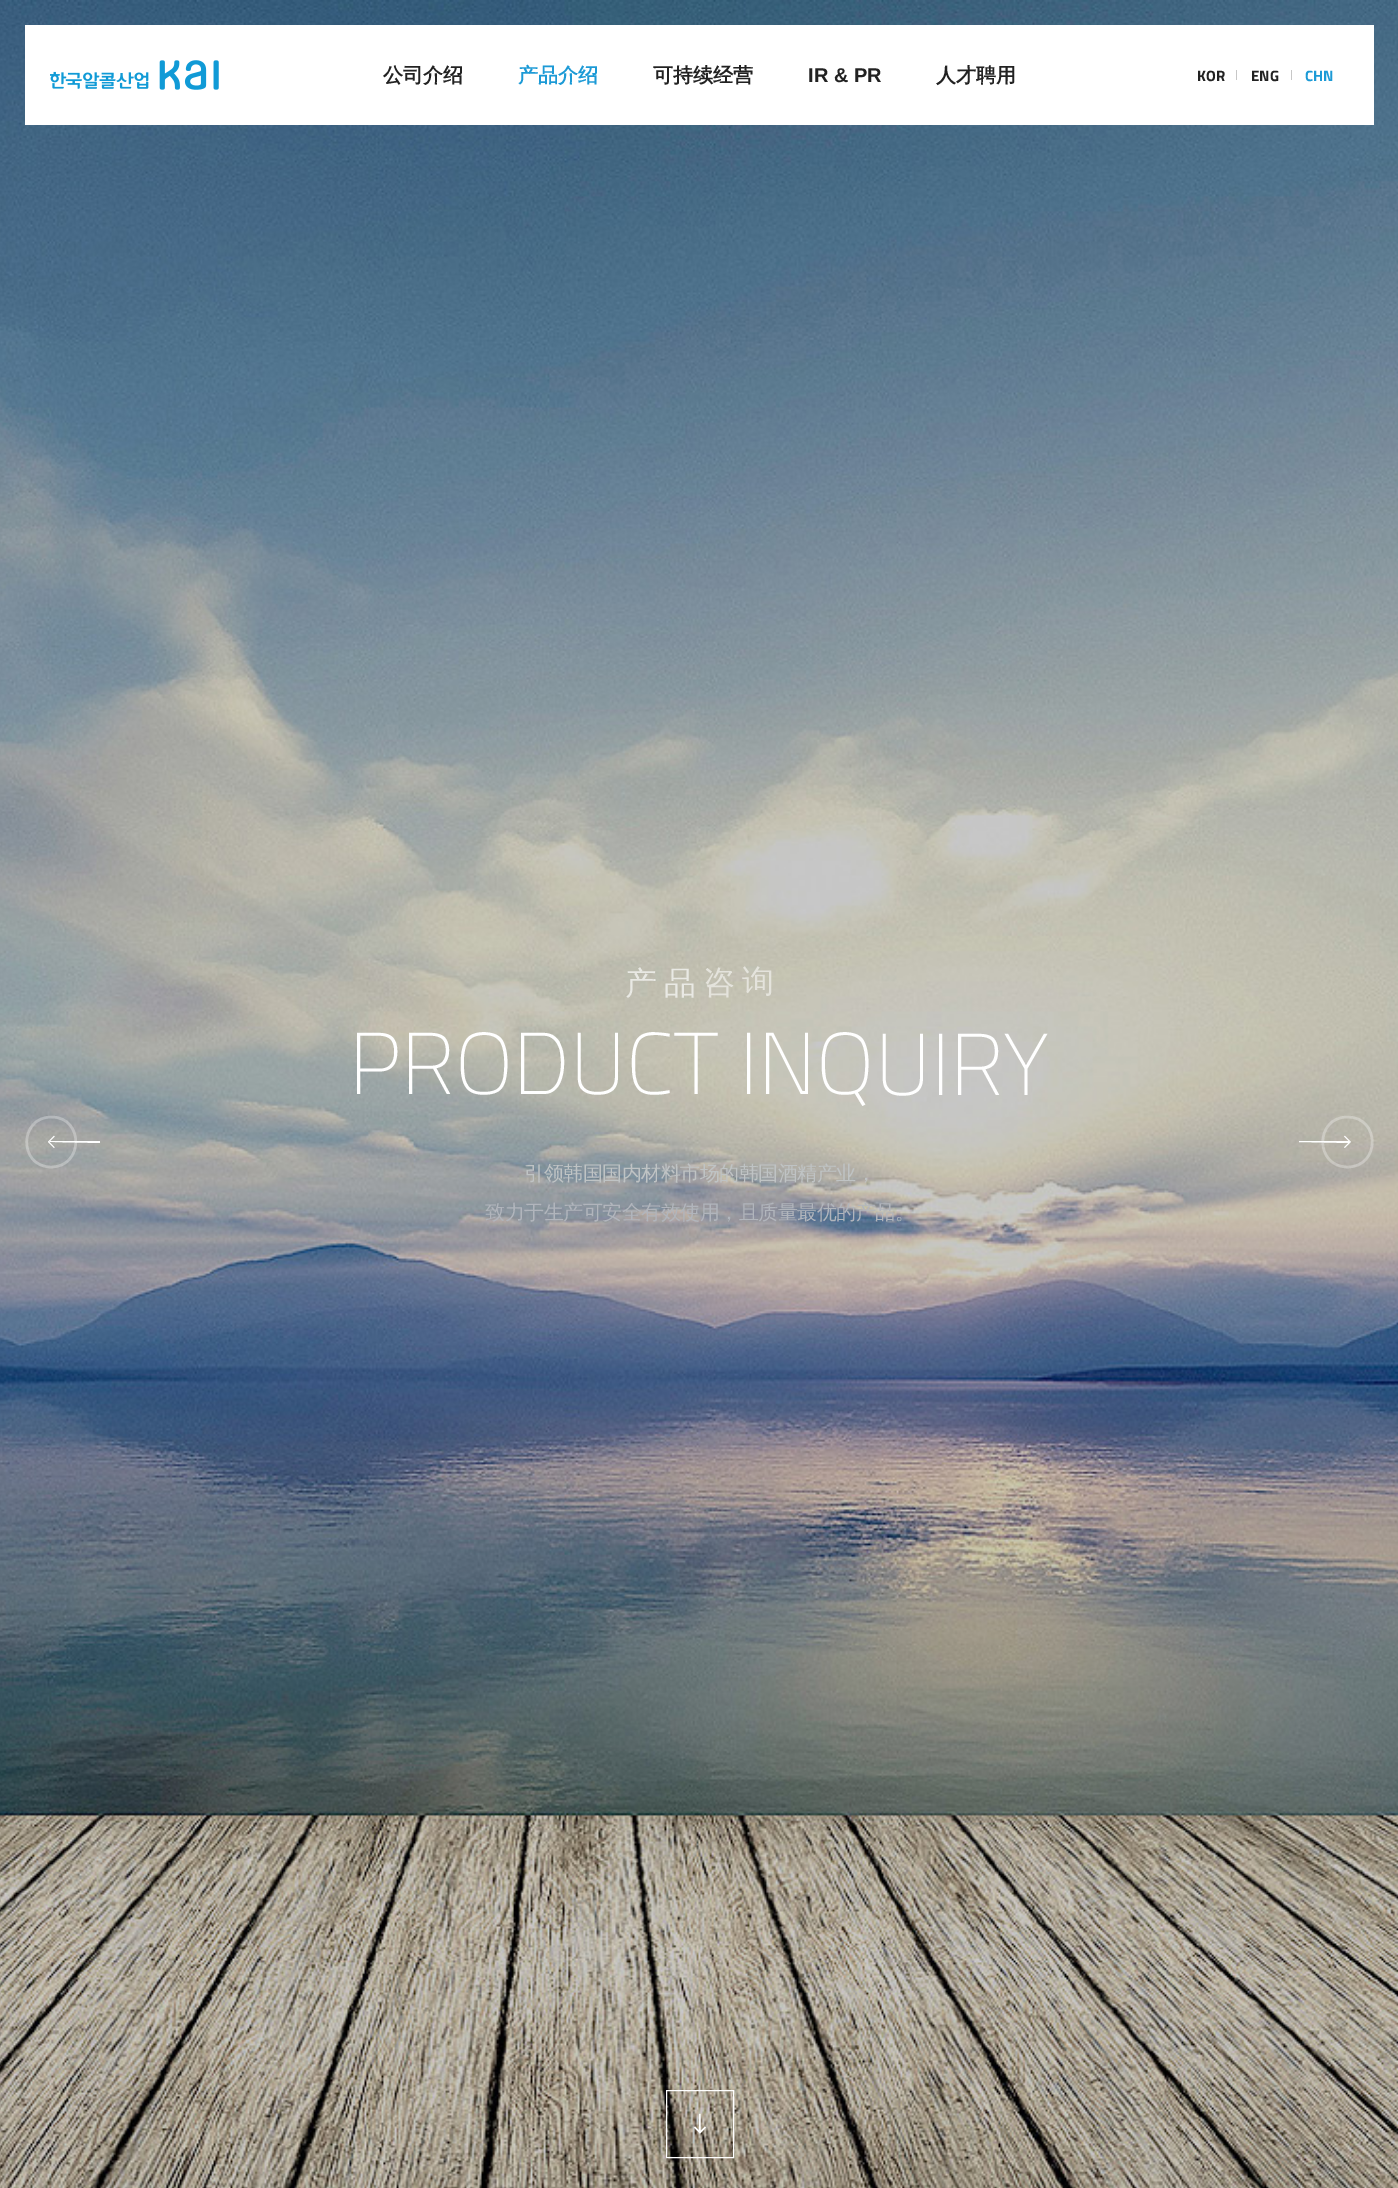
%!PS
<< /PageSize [1398 2188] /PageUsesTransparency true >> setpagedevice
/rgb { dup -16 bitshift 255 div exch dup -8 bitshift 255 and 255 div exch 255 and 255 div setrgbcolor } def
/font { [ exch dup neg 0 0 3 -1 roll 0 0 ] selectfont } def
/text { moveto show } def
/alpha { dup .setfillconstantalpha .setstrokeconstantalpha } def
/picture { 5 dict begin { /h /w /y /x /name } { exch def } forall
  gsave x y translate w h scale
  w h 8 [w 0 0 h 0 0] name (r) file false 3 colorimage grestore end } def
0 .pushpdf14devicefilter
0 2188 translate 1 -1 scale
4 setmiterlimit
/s1 { /WenQuanYiZenHei-Bold 20 font 16#222222 rgb } def
/s2 { /WenQuanYiZenHei-Bold 20 font 16#1C9AD6 rgb } def
/s3 { /LiberationSans-Bold 20 font 16#222222 rgb } def
/s4 { /TitilliumWeb-Bold 15 font 16#222222 rgb } def
/s5 { /TitilliumWeb-Bold 15 font 16#1C9AD6 rgb } def
/s6 { /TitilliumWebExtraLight-ExtraLight 87.5 font 16#FFFFFF rgb } def
16#FFFFFF rgb
0 0 1398 2188 rectfill
(pic2.raw) 0 0 1398 2188 picture
25 25 1349 100 rectfill
(pic1.raw) 50 60 169 30 picture
s1
(公司介绍) 383 82 text
s2
(产品介绍) 518 82 text
s1
(可持续经营) 653 82 text
s3
(IR & PR) 808 82 text
s1
(人才聘用) 936 82 text
s4
(KOR) 1197 81 text
16#C7C7C7 rgb
1236 70 1 10 rectfill
s4
(ENG) 1251 81 text
16#C7C7C7 rgb
1291 70 1 10 rectfill
s5
(CHN) 1305 81 text
/WenQuanYiZenHei-Medium 32 font
16#E9E9E4 rgb
625 994 moveto 6 0 (产) ashow
664 994 moveto 6 0 (品) ashow
16#E4E3DC rgb
703 993 moveto 6 0 (咨) ashow
742 992 moveto 6 0 (询) ashow
s6
(PRODUCT INQ) 349 1094 text
(UIR) 875 1095 text
(Y) 1003 1095 text
/WenQuanYiZenHei-Medium 20 font
16#BFC3C4 rgb
524 1180 moveto -0.5 0 (引领韩国国内材料市场的韩国酒精产业，) ashow
16#B1B5BC rgb
485 1219 moveto -0.5 0 (致力于生产可安全有效使用，且质量最优的产品。) ashow
0.3 alpha
16#FFFFFF rgb
2.5 setlinewidth
51.5 1117 moveto 84 1117 84 1167 51 1167 curveto 18.5 1167 18.5 1117 51.5 1117 curveto closepath stroke
1 alpha
50 1141 moveto 100 1141 lineto 100 1143 lineto 50 1142 lineto closepath fill
(pic3.raw) 48 1135 7 13 picture
0.3 alpha
1347.5 1117 moveto 1380.5 1117 1380.5 1167 1347.5 1167 curveto 1314.5 1167 1314.5 1117 1347.5 1117 curveto closepath stroke
1 alpha
1299 1141 moveto 1349 1141 lineto 1349 1143 lineto 1299 1142 lineto closepath fill
(pic4.raw) 1344 1135 7 13 picture
1 setlinewidth
666.5 2090.5 67 67 rectstroke
(pic5.raw) 694 2113 12 21 picture
.poppdf14devicefilter showpage
